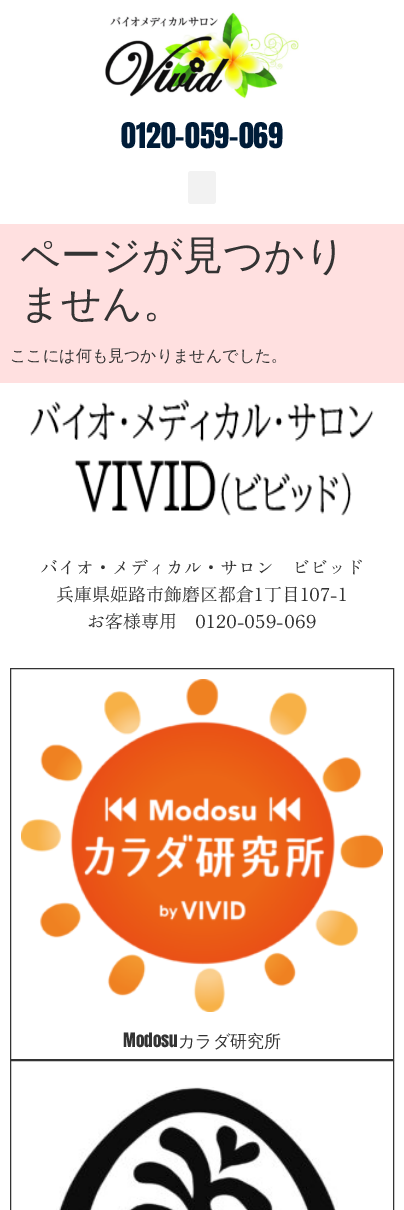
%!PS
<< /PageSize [404 1210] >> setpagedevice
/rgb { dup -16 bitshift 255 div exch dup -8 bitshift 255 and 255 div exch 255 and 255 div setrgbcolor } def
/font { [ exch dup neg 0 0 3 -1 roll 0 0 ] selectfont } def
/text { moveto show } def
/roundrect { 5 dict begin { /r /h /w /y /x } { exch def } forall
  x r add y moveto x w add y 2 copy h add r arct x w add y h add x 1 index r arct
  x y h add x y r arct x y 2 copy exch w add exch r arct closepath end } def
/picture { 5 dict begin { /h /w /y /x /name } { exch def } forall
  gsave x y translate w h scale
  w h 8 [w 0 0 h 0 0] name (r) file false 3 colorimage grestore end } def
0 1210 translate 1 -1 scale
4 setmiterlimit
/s1 { /Anton-Regular 30 font 16#001C38 rgb } def
/s2 { /WenQuanYiZenHei-Medium 40 font 16#333333 rgb } def
/s3 { /WenQuanYiZenHei-Medium 16 font 16#333333 rgb } def
/s4 { /ZenOldMincho-Regular 18 font 16#333333 rgb } def
/s5 { /Anton-Regular 17 font 16#333333 rgb } def
/s6 { /WenQuanYiZenHei-Medium 17 font 16#333333 rgb } def
16#FFE0E0 rgb
0 0 404 1210 rectfill
16#FFFFFF rgb
0 0 404 224 rectfill
(pic1.raw) 105 11 194 89 picture
s1
(0120-059-069) 121 148 text
16#F2F2F2 rgb
188 171 28 33 3 roundrect fill
s2
(ページが見つかり) 20 269 text
(ません。) 20 317 text
s3
(ここには何も見つかりませんでした。) 10 361 text
16#FFFFFF rgb
0 383 404 827 rectfill
(pic2.raw) 30 399 344 117 picture
s4
(バイオ・メディカル・サロン　ビビッド) 40 574 text
(兵庫県姫路市飾磨区都倉1丁目107-1) 56 601 text
(お客様専用　0120-059-069) 87 628 text
10.5 668.5 383 391 rectstroke
(pic3.raw) 21 679 362 333 picture
s5
(Modosu) 123 1047 text
s6
(カラダ研究所) 178 1047 text
10.5 1060.5 383 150 rectstroke
(pic4.raw) 56 1087 282 123 picture
showpage
